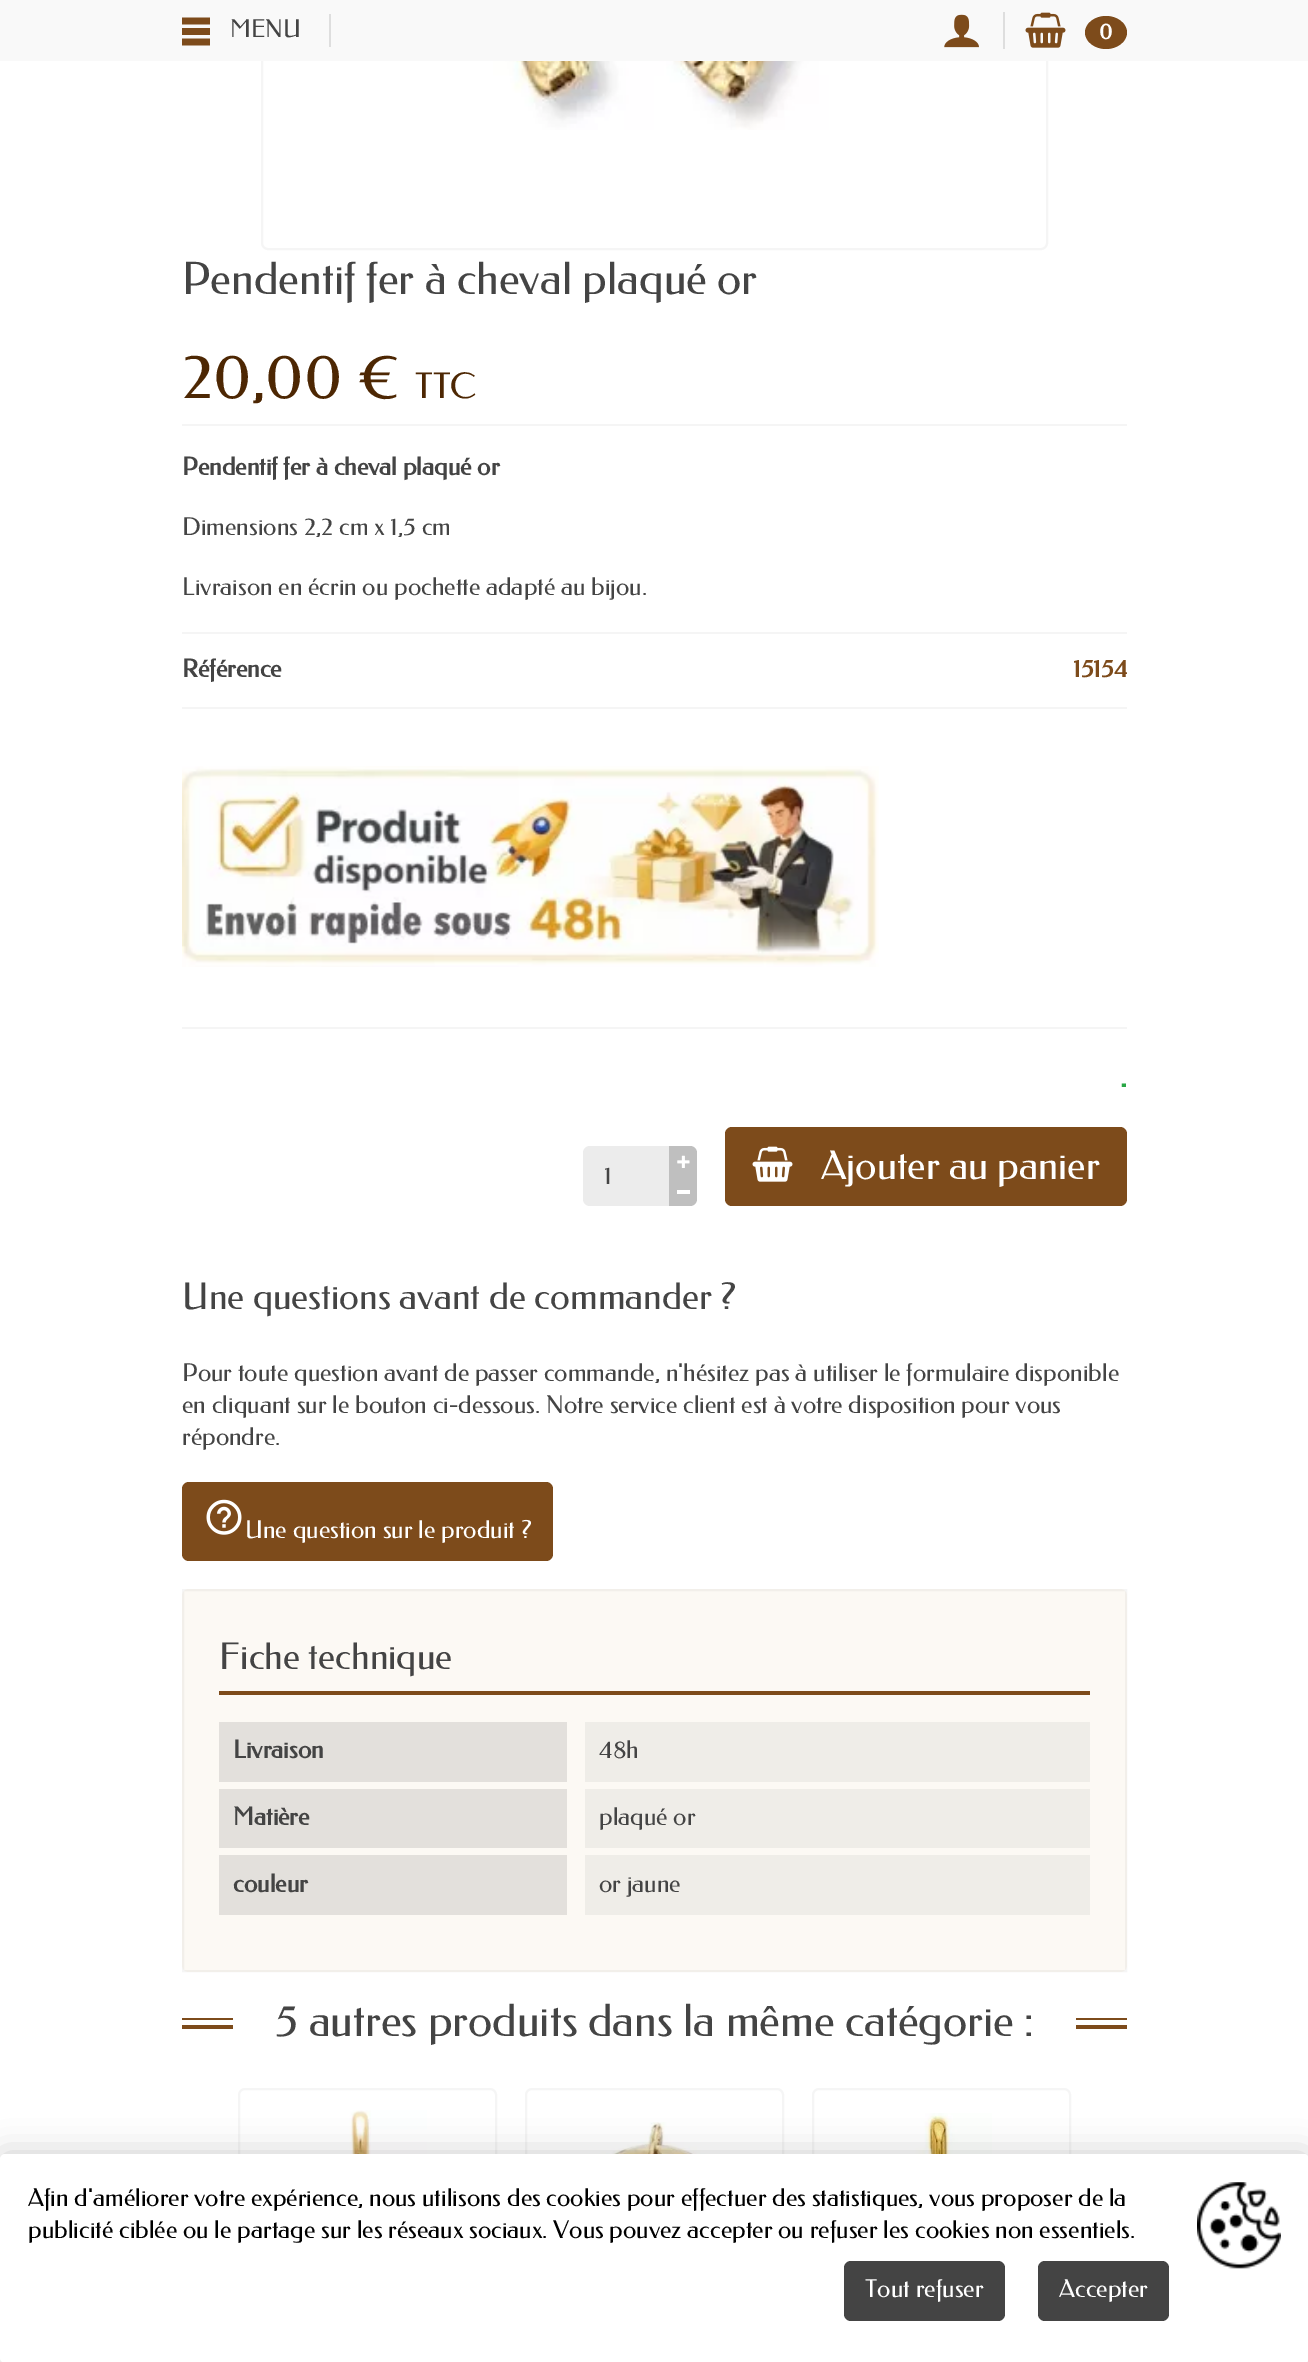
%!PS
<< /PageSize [1308 2362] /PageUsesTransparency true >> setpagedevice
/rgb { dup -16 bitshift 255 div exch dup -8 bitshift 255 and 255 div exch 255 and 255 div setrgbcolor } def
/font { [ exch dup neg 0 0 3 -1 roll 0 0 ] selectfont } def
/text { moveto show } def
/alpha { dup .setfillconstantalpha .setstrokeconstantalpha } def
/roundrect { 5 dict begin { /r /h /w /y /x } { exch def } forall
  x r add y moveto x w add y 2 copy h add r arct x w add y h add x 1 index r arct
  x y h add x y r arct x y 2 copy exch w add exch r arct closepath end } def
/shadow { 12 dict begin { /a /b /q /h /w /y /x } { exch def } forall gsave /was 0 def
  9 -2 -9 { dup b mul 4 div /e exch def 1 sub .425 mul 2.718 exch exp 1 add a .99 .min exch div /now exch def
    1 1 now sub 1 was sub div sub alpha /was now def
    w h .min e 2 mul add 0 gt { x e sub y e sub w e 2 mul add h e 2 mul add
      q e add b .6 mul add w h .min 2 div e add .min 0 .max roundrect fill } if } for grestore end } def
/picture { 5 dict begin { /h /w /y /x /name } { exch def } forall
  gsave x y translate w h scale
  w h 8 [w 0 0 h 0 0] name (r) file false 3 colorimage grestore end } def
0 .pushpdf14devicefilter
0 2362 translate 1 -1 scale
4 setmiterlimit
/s1 { /Federo-Regular 24.5 font 16#444444 rgb } def
/s2 { /Federo-Bold 22 font 16#FFFFFF rgb } def
/s3 { /Federo-Regular 44.4 font 16#444444 rgb } def
/s4 { /Federo-Regular 63 font 16#4D2703 rgb } def
/s5 { /Federo-Regular 35 font 16#4D2703 rgb } def
/s6 { /Federo-Bold 24.5 font 16#444444 rgb } def
/s7 { /Federo-Bold 24.5 font 16#7D4B1B rgb } def
/s8 { /Federo-Bold 32 font 16#28A745 rgb } def
/s9 { /Federo-Regular 39.25 font 16#FFFFFF rgb } def
/s10 { /Federo-Regular 36.4 font 16#444444 rgb } def
/s11 { /Federo-Regular 24.5 font 16#FFFFFF rgb } def
/s12 { /Federo-Regular 24.5 font 16#000000 rgb } def
16#FFFFFF rgb
0 0 1308 2362 rectfill
16#F5F5F5 rgb
2 setlinewidth
262 -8 785 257 6 roundrect stroke
16#F9F9F9 rgb
0 0 1308 61 rectfill
16#DEDEDE rgb
329 14 2 33 rectfill
(pic1.raw) 182 17 28 29 picture
s1
(MENU) 230 37 text
(pic2.raw) 944 14 35 34 picture
16#DEDEDE rgb
1003 12 2 37 rectfill
(pic3.raw) 1025 12 41 36 picture
16#7D4B1B rgb
1106 16 moveto 1117.5 16 1127 23.5 1127 32.5 curveto 1127 41.5 1117.5 49 1106 49 curveto 1094.5 49 1085 41.5 1085 32.5 curveto 1085 23.5 1094.5 16 1106 16 curveto closepath fill
s2
(0) 1099 39 text
(pic4.raw) 493 61 336 69 picture
s3
(Pendentif fer à cheval plaqué or) 182 294 text
s4
(20,00 €) 182 398 text
s5
(TTC) 415 398 text
16#F5F5F5 rgb
182 424 945 2 rectfill
182 632 945 2 rectfill
s6
(Pendentif fer à cheval plaqué or) 182 475 text
s1
(Dimensions 2,2 cm x 1,5 cm) 182 535 text
(Livraison en écrin ou pochette adapté au bijou.) 182 595 text
16#F5F5F5 rgb
182 707 945 2 rectfill
s6
(Référence) 182 677 text
s7
(15154) 1073 677 text
16#F5F5F5 rgb
182 1027 945 2 rectfill
(pic5.raw) 182 766 697 201 picture
16#ECECEC rgb
590 1146 moveto 669 1146 lineto 669 1206 lineto 590 1206 lineto 586 1206 583 1203 583 1199 curveto 583 1153 lineto 583 1149 586 1146 590 1146 curveto closepath fill
s1
(1) 604 1184 text
16#BFBFBF rgb
669 1146 moveto 690 1146 lineto 694 1146 697 1149 697 1153 curveto 697 1176 lineto 669 1176 lineto closepath fill
(pic6.raw) 677 1155 13 13 picture
669 1176 moveto 697 1176 lineto 697 1199 lineto 697 1203 694 1206 690 1206 curveto 669 1206 lineto closepath fill
16#FFFFFF rgb
677 1190 13 4 rectfill
s8
(.) 1120 1087 text
16#7D4B1B rgb
725 1127 402 79 7 roundrect fill
(pic7.raw) 752 1146 41 36 picture
s9
(Ajouter au panier) 821 1179 text
s10
(Une questions avant de commander ?) 182 1309 text
s1
(Pour toute question avant de passer commande, n'hésitez pas à utiliser le formulaire disponible) 182 1381 text
(en cliquant sur le bouton ci-dessous. Notre service client est à votre disposition pour vous) 182 1413 text
(répondre.) 182 1445 text
16#7D4B1B rgb
182 1482 371 79 7 roundrect fill
(pic8.raw) 206 1499 36 36 picture
s11
(Une question sur le produit ?) 245 1538 text
16#FCF9F4 rgb
182 1589 945 383 7 roundrect fill
0.04 alpha
16#000000 rgb
183 1590 943 381 rectstroke
1 alpha
16#7D4B1B rgb
219 1691 871 4 rectfill
s10
(Fiche technique) 219 1669 text
16#E3E0DC rgb
219 1722 348 60 rectfill
s6
(Livraison) 233 1758 text
16#EFEDE8 rgb
585 1722 505 60 rectfill
s1
(48h) 599 1758 text
16#E3E0DC rgb
219 1789 348 59 rectfill
s6
(Matière) 233 1825 text
16#EFEDE8 rgb
585 1789 505 59 rectfill
s1
(plaqué or) 599 1825 text
16#E3E0DC rgb
219 1855 348 60 rectfill
s6
(couleur) 233 1892 text
16#EFEDE8 rgb
585 1855 505 60 rectfill
s1
(or jaune) 599 1892 text
16#7D4B1B rgb
182 2018 51 2 rectfill
182 2025 51 4 rectfill
s3
(5 autres produits dans la même catégorie :) 275 2036 text
16#7D4B1B rgb
1076 2018 51 2 rectfill
1076 2025 51 4 rectfill
16#F5F5F5 rgb
239 2089 257 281 6 roundrect stroke
(pic9.raw) 298 2110 129 44 picture
526 2089 257 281 6 roundrect stroke
(pic10.raw) 567 2122 173 32 picture
813 2089 257 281 6 roundrect stroke
(pic11.raw) 892 2113 100 41 picture
16#000000 rgb
0 2154 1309 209 5 16 0.2 shadow
16#FFFFFF rgb
0 2154 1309 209 5 roundrect fill
s12
(Afin d'améliorer votre expérience, nous utilisons des cookies pour effectuer des statistiques, vous proposer de la) 28 2206 text
(publicité ciblée ou le partage sur les réseaux sociaux. Vous pouvez accepter ou refuser les cookies non essentiels.) 28 2238 text
(pic12.raw) 1197 2182 84 87 picture
16#444444 rgb
844 2261 161 60 7 roundrect fill
s11
(Tout refuser) 865 2297 text
16#444444 rgb
1038 2261 131 60 7 roundrect fill
s11
(Accepter) 1059 2297 text
.poppdf14devicefilter showpage
